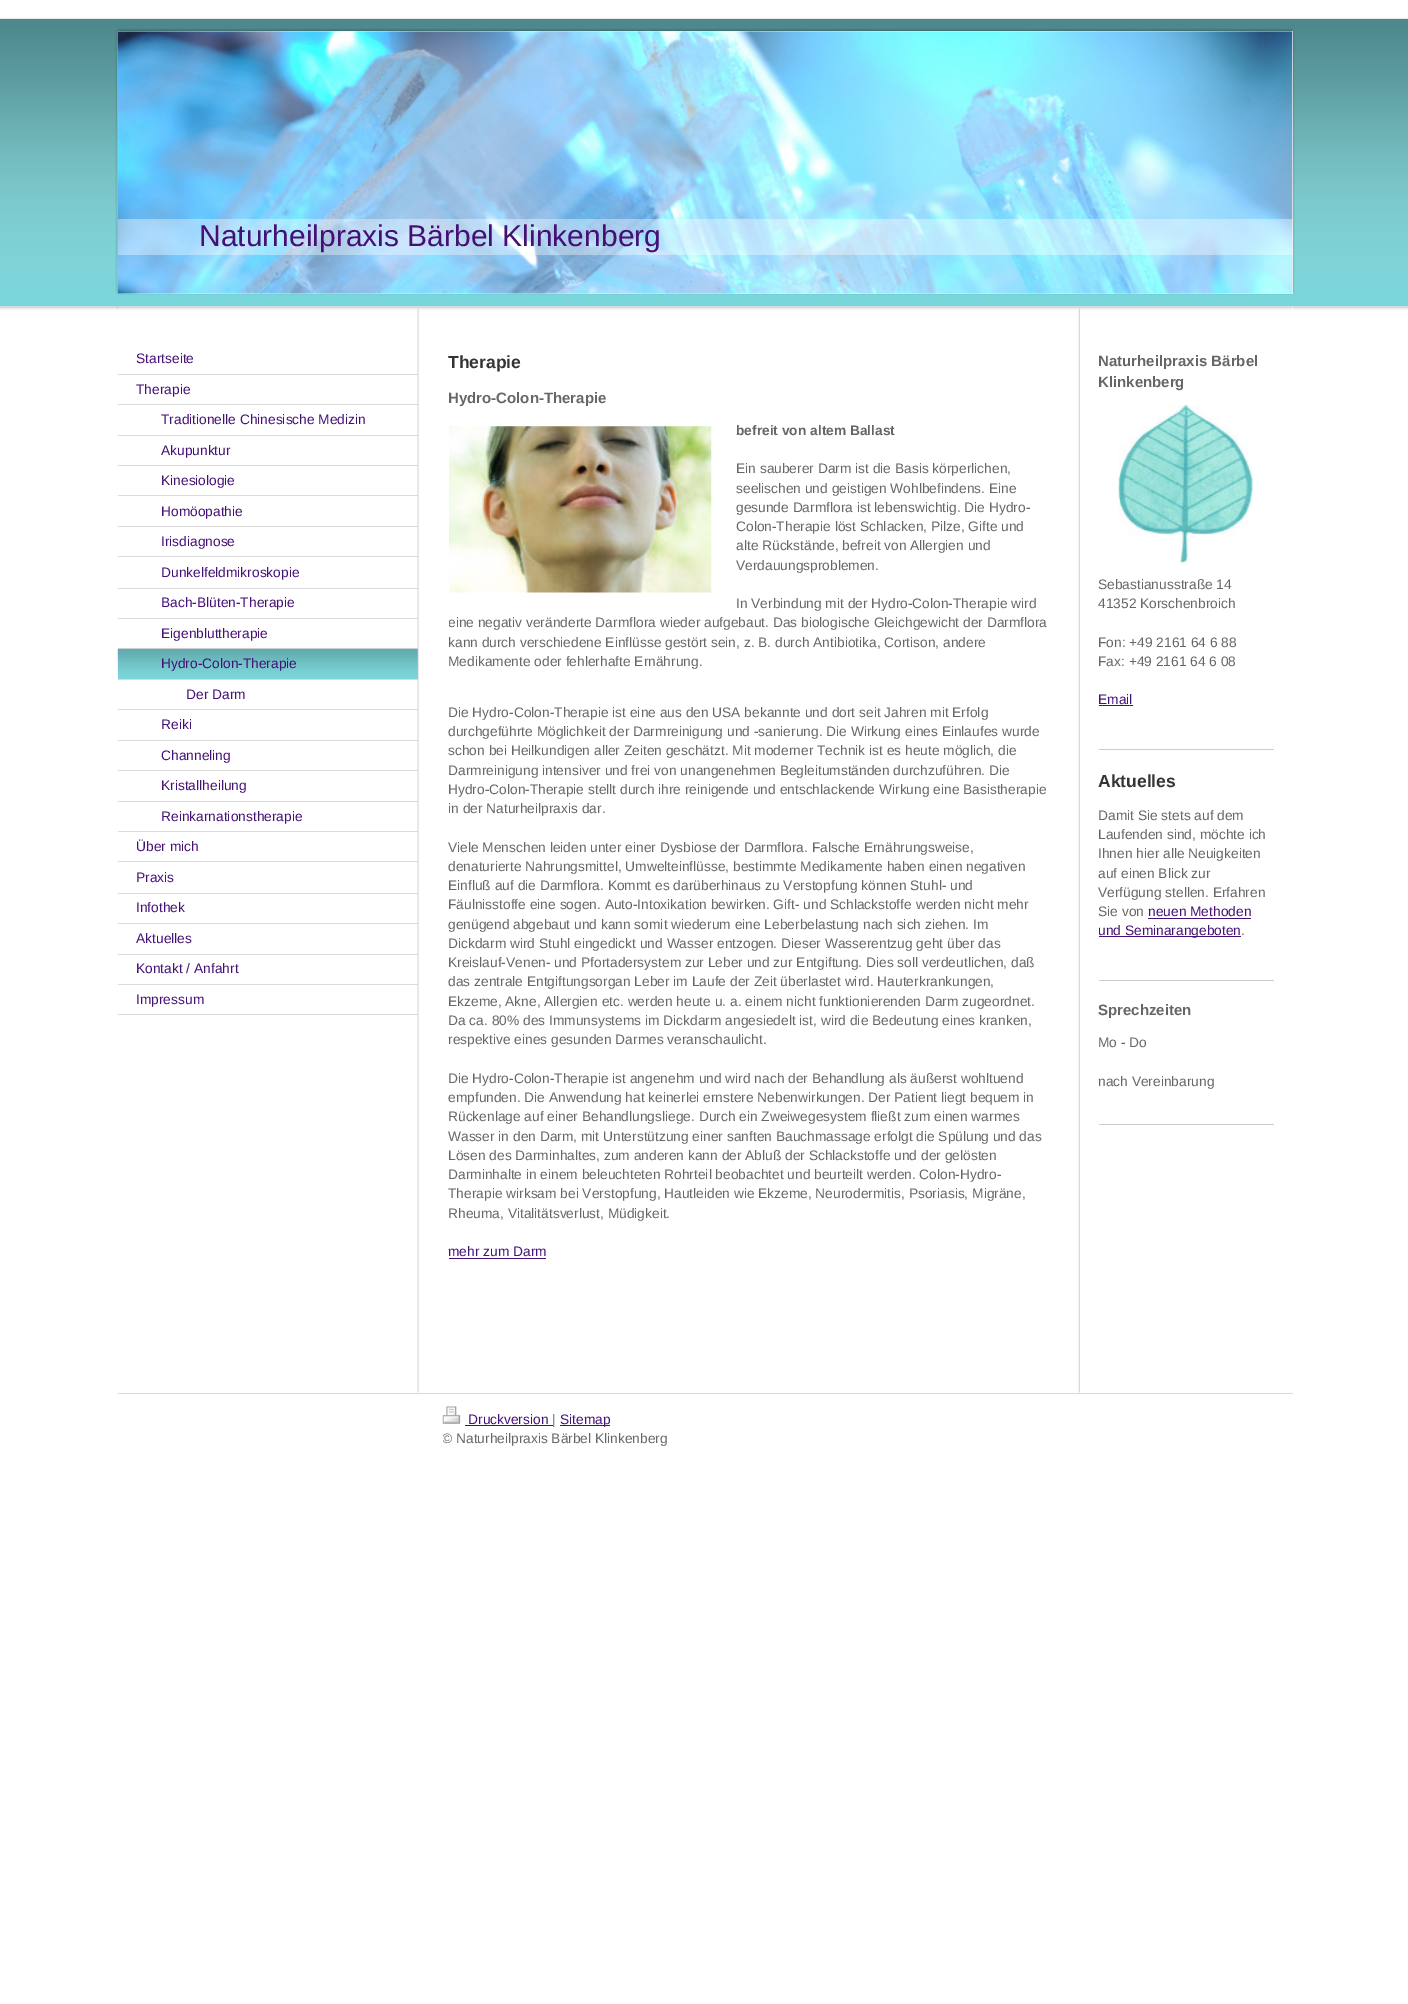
%!PS
<< /PageSize [1408 2004] /PageUsesTransparency true >> setpagedevice
/rgb { dup -16 bitshift 255 div exch dup -8 bitshift 255 and 255 div exch 255 and 255 div setrgbcolor } def
/font { [ exch dup neg 0 0 3 -1 roll 0 0 ] selectfont } def
/text { moveto show } def
/alpha { dup .setfillconstantalpha .setstrokeconstantalpha } def
/picture { 5 dict begin { /h /w /y /x /name } { exch def } forall
  gsave x y translate w h scale
  w h 8 [w 0 0 h 0 0] name (r) file false 3 colorimage grestore end } def
0 .pushpdf14devicefilter
0 2004 translate 1 -1 scale
4 setmiterlimit
/s1 { /LiberationSans-Regular 30 font 16#451075 rgb } def
/s2 { /LiberationSans-Regular 13.75 font 16#451075 rgb } def
/s3 { /LiberationSans-Bold 17.5 font 16#333333 rgb } def
/s4 { /LiberationSans-Bold 15 font 16#666666 rgb } def
/s5 { /LiberationSans-Bold 13.75 font 16#666666 rgb } def
/s6 { /LiberationSans-Regular 13.75 font 16#666666 rgb } def
16#FFFFFF rgb
0 0 1408 2004 rectfill
16#79D7DB rgb
0 19 1408 287 rectfill
(pic1.raw) 0 18 1408 272 picture
(pic2.raw) 115 28 1180 267 picture
16#EEEEEE rgb
118 31 1175 263 rectfill
(pic3.raw) 117 31 1176 263 picture
0.37 alpha
16#FFFFFF rgb
118 219 1175 36 rectfill
1 alpha
s1
(Naturheilpraxis Bärbel Klinkenberg) 199 246 text
(pic4.raw) 0 306 1408 4 picture
16#FFFFFF rgb
118 306 1175 4 rectfill
(pic5.raw) 117 306 1176 4 picture
(pic6.raw) 417 308 663 1085 picture
16#DADADA rgb
118 374 300 1 rectfill
s2
(Startseite) 136 363 text
16#DADADA rgb
118 404 300 1 rectfill
s2
(Therapie) 136 394 text
16#DADADA rgb
118 435 300 1 rectfill
s2
(Traditionelle Chinesische Medizin) 161 424 text
16#DADADA rgb
118 465 300 1 rectfill
s2
(Akupunktur) 161 455 text
16#DADADA rgb
118 495 300 1 rectfill
s2
(Kinesiologie) 161 485 text
16#DADADA rgb
118 526 300 1 rectfill
s2
(Homöopathie) 161 516 text
16#DADADA rgb
118 556 300 1 rectfill
s2
(Irisdiagnose) 161 546 text
16#DADADA rgb
118 588 300 1 rectfill
s2
(Dunkelfeldmikroskopie) 161 577 text
16#DADADA rgb
118 618 300 1 rectfill
s2
(Bach-Blüten-Therapie) 161 607 text
16#DADADA rgb
118 648 300 1 rectfill
s2
(Eigenbluttherapie) 161 638 text
16#79D7DB rgb
118 649 300 30 rectfill
(pic7.raw) 117 648 301 29 picture
16#DADADA rgb
118 679 300 1 rectfill
s2
(Hydro-Colon-Therapie) 161 668 text
16#DADADA rgb
118 709 300 1 rectfill
s2
(Der Darm) 186 699 text
16#DADADA rgb
118 740 300 1 rectfill
s2
(Reiki) 161 729 text
16#DADADA rgb
118 770 300 1 rectfill
s2
(Channeling) 161 760 text
16#DADADA rgb
118 801 300 1 rectfill
s2
(Kristallheilung) 161 790 text
16#DADADA rgb
118 831 300 1 rectfill
s2
(Reinkarnationstherapie) 161 821 text
16#DADADA rgb
118 861 300 1 rectfill
s2
(Über mich) 136 851 text
16#DADADA rgb
118 893 300 1 rectfill
s2
(Praxis) 136 882 text
16#DADADA rgb
118 923 300 1 rectfill
s2
(Infothek) 136 912 text
16#DADADA rgb
118 954 300 1 rectfill
s2
(Aktuelles) 136 943 text
16#DADADA rgb
118 984 300 1 rectfill
s2
(Kontakt / Anfahrt) 136 973 text
16#DADADA rgb
118 1014 300 1 rectfill
s2
(Impressum) 136 1004 text
s3
(Therapie) 448 368 text
s4
(Hydro-Colon-Therapie) 448 403 text
s5
(befreit von altem Ballast) 736 435 text
s6
(Ein sauberer Darm ist die Basis körperlichen,) 736 473 text
(seelischen und geistigen Wohlbefindens. Eine) 736 493 text
(gesunde Darmflora ist lebenswichtig. Die Hydro-) 736 512 text
(Colon-Therapie löst Schlacken, Pilze, Gifte und) 736 531 text
(alte Rückstände, befreit von Allergien und) 736 550 text
(Verdauungsproblemen.) 736 570 text
(In Verbindung mit der Hydro-Colon-Therapie wird) 736 608 text
gsave
449 421 600 269 rectclip
(eine negativ veränderte Darmflora wieder aufgebaut. Das biologische Gleichgewicht der Darmflora) 448 627 text
grestore
(kann durch verschiedene Einflüsse gestört sein, z. B. durch Antibiotika, Cortison, andere) 448 647 text
(Medikamente oder fehlerhafte Ernährung.) 448 666 text
(pic8.raw) 449 426 263 167 picture
(Die Hydro-Colon-Therapie ist eine aus den USA bekannte und dort seit Jahren mit Erfolg) 448 717 text
(durchgeführte Möglichkeit der Darmreinigung und -sanierung. Die Wirkung eines Einlaufes wurde) 448 736 text
(schon bei Heilkundigen aller Zeiten geschätzt. Mit moderner Technik ist es heute möglich, die) 448 755 text
(Darmreinigung intensiver und frei von unangenehmen Begleitumständen durchzuführen. Die) 448 775 text
(Hydro-Colon-Therapie stellt durch ihre reinigende und entschlackende Wirkung eine Basistherapie) 448 794 text
(in der Naturheilpraxis dar.) 448 813 text
(Viele Menschen leiden unter einer Dysbiose der Darmflora. Falsche Ernährungsweise,) 448 852 text
(denaturierte Nahrungsmittel, Umwelteinflüsse, bestimmte Medikamente haben einen negativen) 448 871 text
(Einfluß auf die Darmflora. Kommt es darüberhinaus zu Verstopfung können Stuhl- und) 448 890 text
(Fäulnisstoffe eine sogen. Auto-Intoxikation bewirken. Gift- und Schlackstoffe werden nicht mehr) 448 909 text
(genügend abgebaut und kann somit wiederum eine Leberbelastung nach sich ziehen. Im) 448 929 text
(Dickdarm wird Stuhl eingedickt und Wasser entzogen. Dieser Wasserentzug geht über das) 448 948 text
(Kreislauf-Venen- und Pfortadersystem zur Leber und zur Entgiftung. Dies soll verdeutlichen, daß) 448 967 text
(das zentrale Entgiftungsorgan Leber im Laufe der Zeit überlastet wird. Hauterkrankungen,) 448 986 text
(Ekzeme, Akne, Allergien etc. werden heute u. a. einem nicht funktionierenden Darm zugeordnet.) 448 1006 text
(Da ca. 80% des Immunsystems im Dickdarm angesiedelt ist, wird die Bedeutung eines kranken,) 448 1025 text
(respektive eines gesunden Darmes veranschaulicht.) 448 1044 text
(Die Hydro-Colon-Therapie ist angenehm und wird nach der Behandlung als äußerst wohltuend) 448 1083 text
(empfunden. Die Anwendung hat keinerlei ernstere Nebenwirkungen. Der Patient liegt bequem in) 448 1102 text
(Rückenlage auf einer Behandlungsliege. Durch ein Zweiwegesystem fließt zum einen warmes) 448 1121 text
(Wasser in den Darm, mit Unterstützung einer sanften Bauchmassage erfolgt die Spülung und das) 448 1141 text
(Lösen des Darminhaltes, zum anderen kann der Abluß der Schlackstoffe und der gelösten) 448 1160 text
(Darminhalte in einem beleuchteten Rohrteil beobachtet und beurteilt werden. Colon-Hydro-) 448 1179 text
(Therapie wirksam bei Verstopfung, Hautleiden wie Ekzeme, Neurodermitis, Psoriasis, Migräne,) 448 1198 text
(Rheuma, Vitalitätsverlust, Müdigkeit.) 448 1218 text
s2
(mehr zum Darm) 448 1256 text
449 1258 97 1 rectfill
s4
(Naturheilpraxis Bärbel) 1098 366 text
(Klinkenberg) 1098 387 text
(pic9.raw) 1118 405 135 158 picture
s6
(Sebastianusstraße 14) 1098 589 text
(41352 Korschenbroich) 1098 608 text
(Fon: +49 2161 64 6 88) 1098 647 text
(Fax: +49 2161 64 6 08) 1098 666 text
s2
(Email) 1098 704 text
1099 705 34 1 rectfill
16#CCCCCC rgb
1099 749 175 1 rectfill
s3
(Aktuelles) 1098 787 text
s6
(Damit Sie stets auf dem) 1098 820 text
(Laufenden sind, möchte ich) 1098 839 text
(Ihnen hier alle Neuigkeiten) 1098 858 text
(auf einen Blick zur) 1098 878 text
(Verfügung stellen. Erfahren) 1098 897 text
(Sie von) 1098 916 text
s2
(neuen Methoden) 1148 916 text
1148 918 103 1 rectfill
1099 936 142 1 rectfill
(und Seminarangeboten) 1098 935 text
s6
(.) 1241 935 text
16#CCCCCC rgb
1099 980 175 1 rectfill
s4
(Sprechzeiten) 1098 1015 text
s6
(Mo - Do) 1098 1047 text
(nach Vereinbarung) 1098 1086 text
16#CCCCCC rgb
1099 1124 175 1 rectfill
16#DADADA rgb
118 1393 1175 1 rectfill
(pic10.raw) 442 1406 19 18 picture
s2
(Druckversion) 468 1424 text
465 1425 88 1 rectfill
s6
(|) 552 1424 text
16#451075 rgb
560 1425 50 1 rectfill
(Sitemap) 560 1424 text
gsave
443 1406 612 62 rectclip
s6
(© Naturheilpraxis Bärbel Klinkenberg) 442 1443 text
grestore
.poppdf14devicefilter showpage
